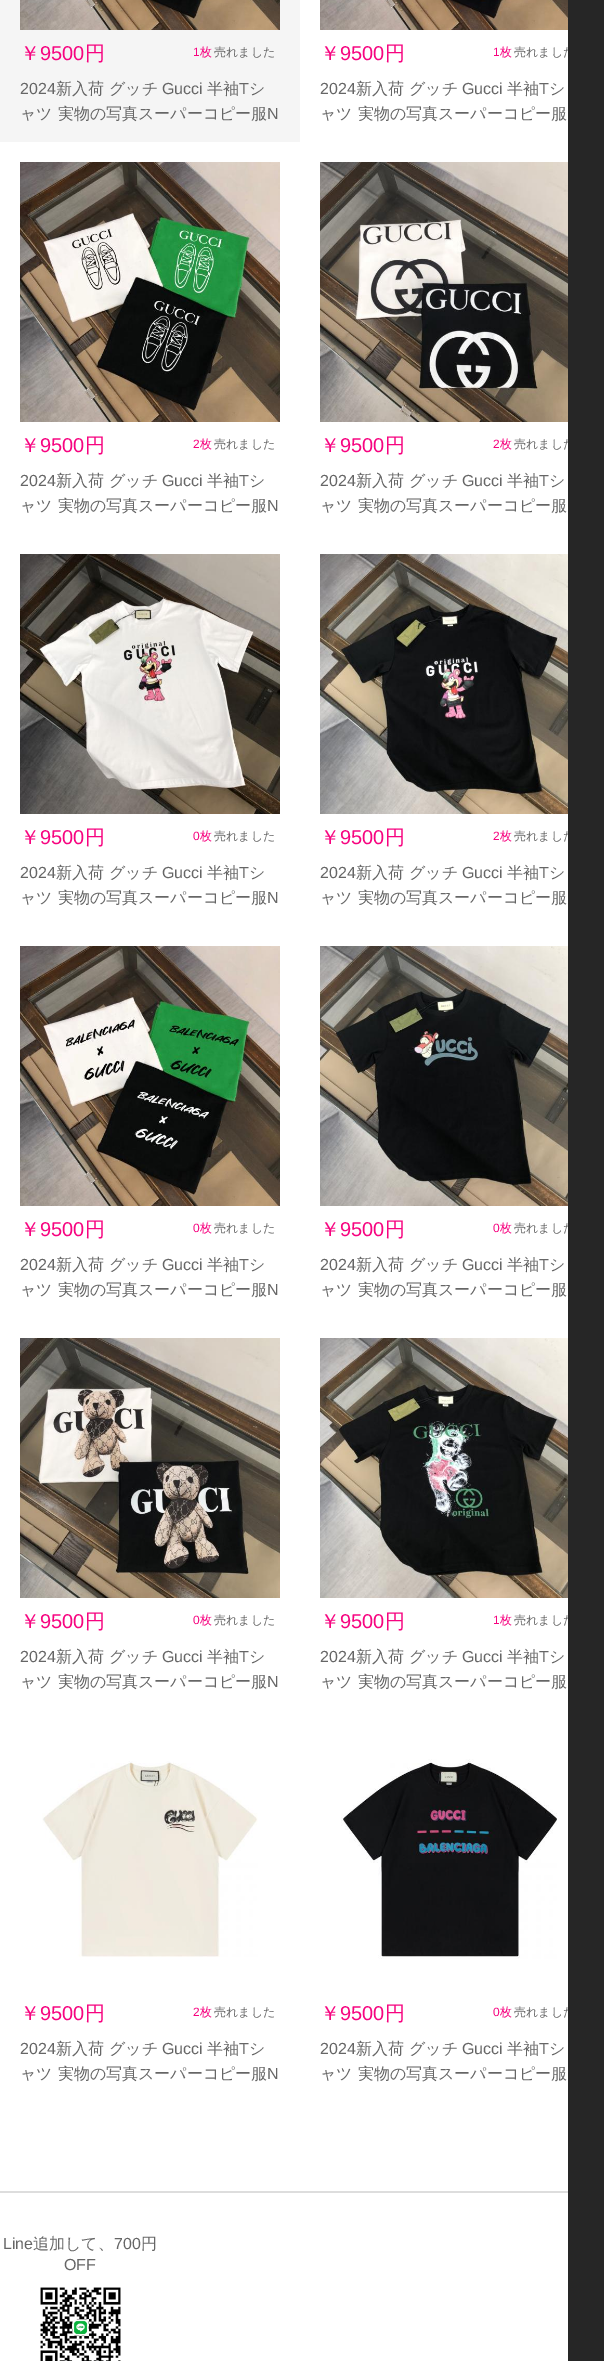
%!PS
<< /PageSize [604 2361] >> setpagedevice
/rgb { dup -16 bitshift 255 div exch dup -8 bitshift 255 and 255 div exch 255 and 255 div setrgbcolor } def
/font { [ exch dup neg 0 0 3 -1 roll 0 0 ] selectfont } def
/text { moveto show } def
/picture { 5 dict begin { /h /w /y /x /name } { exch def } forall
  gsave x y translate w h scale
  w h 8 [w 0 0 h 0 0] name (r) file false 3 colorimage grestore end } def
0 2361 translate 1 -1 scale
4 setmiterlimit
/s1 { /WenQuanYiZenHei-Medium 20 font 16#F70480 rgb } def
/s2 { /LiberationSans-Regular 20 font 16#F70480 rgb } def
/s3 { /LiberationSans-Regular 12 font 16#F70480 rgb } def
/s4 { /WenQuanYiZenHei-Medium 12 font 16#F70480 rgb } def
/s5 { /WenQuanYiZenHei-Medium 12 font 16#666666 rgb } def
/s6 { /LiberationSans-Regular 16 font 16#666666 rgb } def
/s7 { /WenQuanYiZenHei-Medium 16 font 16#666666 rgb } def
16#FFFFFF rgb
0 0 604 2361 rectfill
16#F5F5F5 rgb
0 0 300 142 rectfill
(pic1.raw) 20 0 260 30 picture
s1
(￥) 20 60 text
s2
(9500) 40 60 text
s1
(円) 85 60 text
s3
(1) 193 56 text
s4
(枚) 200 56 text
s5
(売れました) 214 56 text
s6
(2024) 20 94 text
s7
(新入荷 グッチ) 56 94 text
s6
(Gucci) 162 94 text
s7
(半袖) 207 94 text
s6
(T) 239 94 text
s7
(シ) 249 94 text
(ャツ 実物の写真スーパーコピー服) 20 119 text
s6
(N) 267 119 text
(pic2.raw) 320 0 248 30 picture
s1
(￥) 320 60 text
s2
(9500) 340 60 text
s1
(円) 385 60 text
s3
(1) 493 56 text
s4
(枚) 500 56 text
s5
(売れました) 514 56 text
s6
(2024) 320 94 text
s7
(新入荷 グッチ) 356 94 text
s6
(Gucci) 462 94 text
s7
(半袖) 507 94 text
s6
(T) 539 94 text
s7
(シ) 549 94 text
(ャツ 実物の写真スーパーコピー服) 320 119 text
(pic3.raw) 20 162 260 260 picture
s1
(￥) 20 452 text
s2
(9500) 40 452 text
s1
(円) 85 452 text
s3
(2) 193 448 text
s4
(枚) 200 448 text
s5
(売れました) 214 448 text
s6
(2024) 20 486 text
s7
(新入荷 グッチ) 56 486 text
s6
(Gucci) 162 486 text
s7
(半袖) 207 486 text
s6
(T) 239 486 text
s7
(シ) 249 486 text
(ャツ 実物の写真スーパーコピー服) 20 511 text
s6
(N) 267 511 text
(pic4.raw) 320 162 248 260 picture
s1
(￥) 320 452 text
s2
(9500) 340 452 text
s1
(円) 385 452 text
s3
(2) 493 448 text
s4
(枚) 500 448 text
s5
(売れました) 514 448 text
s6
(2024) 320 486 text
s7
(新入荷 グッチ) 356 486 text
s6
(Gucci) 462 486 text
s7
(半袖) 507 486 text
s6
(T) 539 486 text
s7
(シ) 549 486 text
(ャツ 実物の写真スーパーコピー服) 320 511 text
(pic5.raw) 20 554 260 260 picture
s1
(￥) 20 844 text
s2
(9500) 40 844 text
s1
(円) 85 844 text
s3
(0) 193 840 text
s4
(枚) 200 840 text
s5
(売れました) 214 840 text
s6
(2024) 20 878 text
s7
(新入荷 グッチ) 56 878 text
s6
(Gucci) 162 878 text
s7
(半袖) 207 878 text
s6
(T) 239 878 text
s7
(シ) 249 878 text
(ャツ 実物の写真スーパーコピー服) 20 903 text
s6
(N) 267 903 text
(pic6.raw) 320 554 248 260 picture
s1
(￥) 320 844 text
s2
(9500) 340 844 text
s1
(円) 385 844 text
s3
(2) 493 840 text
s4
(枚) 500 840 text
s5
(売れました) 514 840 text
s6
(2024) 320 878 text
s7
(新入荷 グッチ) 356 878 text
s6
(Gucci) 462 878 text
s7
(半袖) 507 878 text
s6
(T) 539 878 text
s7
(シ) 549 878 text
(ャツ 実物の写真スーパーコピー服) 320 903 text
(pic7.raw) 20 946 260 260 picture
s1
(￥) 20 1236 text
s2
(9500) 40 1236 text
s1
(円) 85 1236 text
s3
(0) 193 1232 text
s4
(枚) 200 1232 text
s5
(売れました) 214 1232 text
s6
(2024) 20 1270 text
s7
(新入荷 グッチ) 56 1270 text
s6
(Gucci) 162 1270 text
s7
(半袖) 207 1270 text
s6
(T) 239 1270 text
s7
(シ) 249 1270 text
(ャツ 実物の写真スーパーコピー服) 20 1295 text
s6
(N) 267 1295 text
(pic8.raw) 320 946 248 260 picture
s1
(￥) 320 1236 text
s2
(9500) 340 1236 text
s1
(円) 385 1236 text
s3
(0) 493 1232 text
s4
(枚) 500 1232 text
s5
(売れました) 514 1232 text
s6
(2024) 320 1270 text
s7
(新入荷 グッチ) 356 1270 text
s6
(Gucci) 462 1270 text
s7
(半袖) 507 1270 text
s6
(T) 539 1270 text
s7
(シ) 549 1270 text
(ャツ 実物の写真スーパーコピー服) 320 1295 text
(pic9.raw) 20 1338 260 260 picture
s1
(￥) 20 1628 text
s2
(9500) 40 1628 text
s1
(円) 85 1628 text
s3
(0) 193 1624 text
s4
(枚) 200 1624 text
s5
(売れました) 214 1624 text
s6
(2024) 20 1662 text
s7
(新入荷 グッチ) 56 1662 text
s6
(Gucci) 162 1662 text
s7
(半袖) 207 1662 text
s6
(T) 239 1662 text
s7
(シ) 249 1662 text
(ャツ 実物の写真スーパーコピー服) 20 1687 text
s6
(N) 267 1687 text
(pic10.raw) 320 1338 248 260 picture
s1
(￥) 320 1628 text
s2
(9500) 340 1628 text
s1
(円) 385 1628 text
s3
(1) 493 1624 text
s4
(枚) 500 1624 text
s5
(売れました) 514 1624 text
s6
(2024) 320 1662 text
s7
(新入荷 グッチ) 356 1662 text
s6
(Gucci) 462 1662 text
s7
(半袖) 507 1662 text
s6
(T) 539 1662 text
s7
(シ) 549 1662 text
(ャツ 実物の写真スーパーコピー服) 320 1687 text
(pic11.raw) 42 1761 216 196 picture
s1
(￥) 20 2020 text
s2
(9500) 40 2020 text
s1
(円) 85 2020 text
s3
(2) 193 2016 text
s4
(枚) 200 2016 text
s5
(売れました) 214 2016 text
s6
(2024) 20 2054 text
s7
(新入荷 グッチ) 56 2054 text
s6
(Gucci) 162 2054 text
s7
(半袖) 207 2054 text
s6
(T) 239 2054 text
s7
(シ) 249 2054 text
(ャツ 実物の写真スーパーコピー服) 20 2079 text
s6
(N) 267 2079 text
(pic12.raw) 341 1759 216 200 picture
s1
(￥) 320 2020 text
s2
(9500) 340 2020 text
s1
(円) 385 2020 text
s3
(0) 493 2016 text
s4
(枚) 500 2016 text
s5
(売れました) 514 2016 text
s6
(2024) 320 2054 text
s7
(新入荷 グッチ) 356 2054 text
s6
(Gucci) 462 2054 text
s7
(半袖) 507 2054 text
s6
(T) 539 2054 text
s7
(シ) 549 2054 text
(ャツ 実物の写真スーパーコピー服) 320 2079 text
16#262626 rgb
568 0 36 2361 rectfill
16#DDDDDD rgb
0 2191 568 2 rectfill
s6
(Line) 3 2249 text
s7
(追加して、) 33 2249 text
s6
(700) 114 2249 text
s7
(円) 141 2249 text
s6
(OFF) 64 2270 text
(pic13.raw) 40 2287 81 74 picture
showpage
